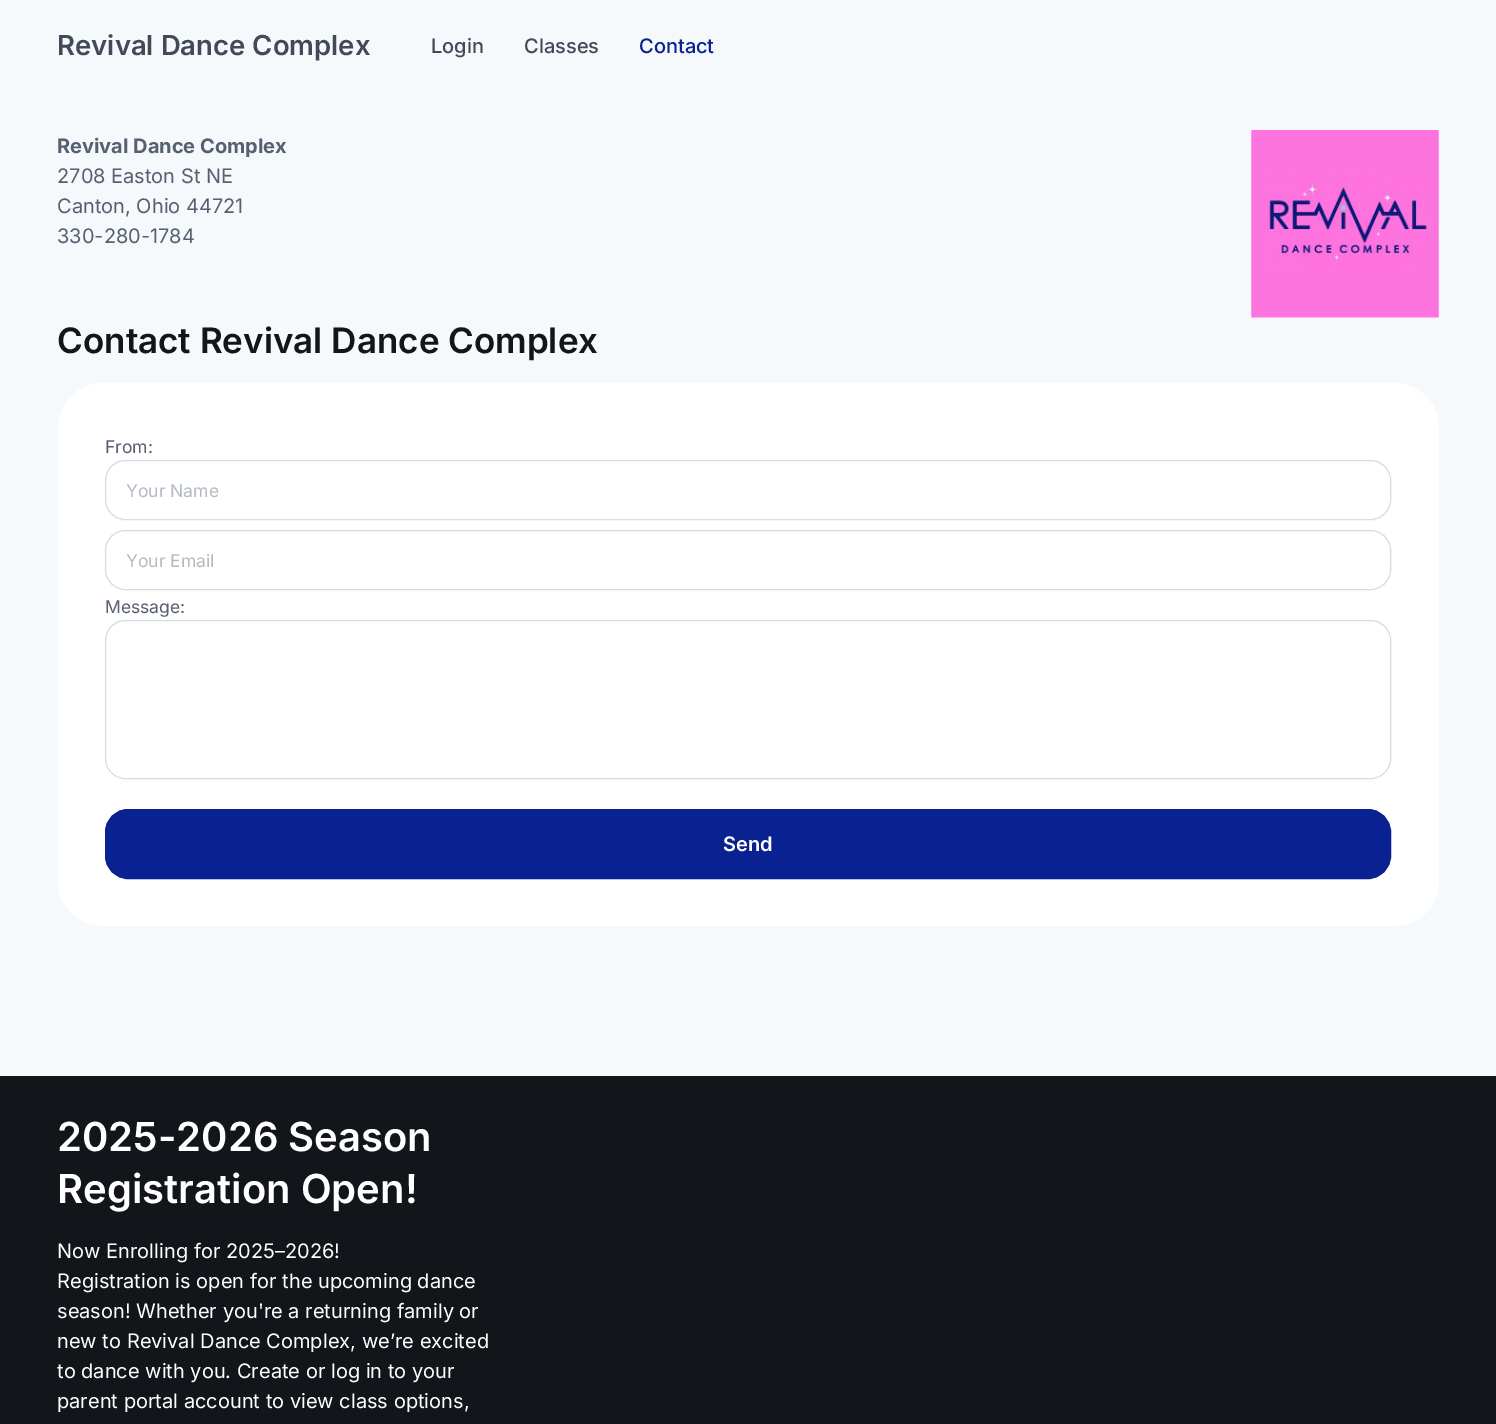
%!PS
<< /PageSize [1496 1424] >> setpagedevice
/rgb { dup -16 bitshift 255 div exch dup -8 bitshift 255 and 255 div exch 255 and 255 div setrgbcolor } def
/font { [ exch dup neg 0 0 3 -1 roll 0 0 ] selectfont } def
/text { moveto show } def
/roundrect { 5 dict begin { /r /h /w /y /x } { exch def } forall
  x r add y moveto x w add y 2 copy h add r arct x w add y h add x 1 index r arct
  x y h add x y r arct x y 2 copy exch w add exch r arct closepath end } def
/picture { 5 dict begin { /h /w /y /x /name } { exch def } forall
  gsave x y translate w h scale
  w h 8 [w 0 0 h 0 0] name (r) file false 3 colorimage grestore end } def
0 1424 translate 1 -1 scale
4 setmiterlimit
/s1 { /Inter-SemiBold 27.5 font 16#434A57 rgb } def
/s2 { /Inter-Medium 20 font 16#434A57 rgb } def
/s3 { /Inter-Medium 20 font 16#0A2191 rgb } def
/s4 { /Inter-Bold 20 font 16#576071 rgb } def
/s5 { /Inter-Regular 20 font 16#576071 rgb } def
/s6 { /Inter-SemiBold 35 font 16#121519 rgb } def
/s7 { /Inter-Regular 17.5 font 16#576071 rgb } def
/s8 { /Inter-Regular 17.5 font 16#B4BBC3 rgb } def
/s9 { /Inter-SemiBold 20 font 16#FFFFFF rgb } def
/s10 { /Inter-SemiBold 40 font 16#FFFFFF rgb } def
/s11 { /Inter-Regular 20 font 16#FFFFFF rgb } def
16#F6F9FC rgb
0 0 1496 1424 rectfill
s1
(Revival Dance Complex) 57 55 text
s2
(Login) 431 53 text
(Classes) 524 53 text
s3
(Contact) 639 53 text
s4
(Revival Dance Complex) 57 153 text
s5
(2708 Easton St NE) 57 183 text
(Canton, Ohio 44721) 57 213 text
(330-280-1784) 57 243 text
(pic1.raw) 1251 130 188 188 picture
s6
(Contact Revival Dance Complex) 57 353 text
16#FFFFFF rgb
58 383 1381 543 45 roundrect fill
s7
(From:) 105 453 text
16#D7DDE2 rgb
105.5 460.5 1285 59 19.5 roundrect stroke
s8
(Your Name) 126 497 text
16#D7DDE2 rgb
105.5 530.5 1285 59 19.5 roundrect stroke
s8
(Your Email) 126 567 text
s7
(Message:) 105 613 text
16#D7DDE2 rgb
105.5 620.5 1285 158 19.5 roundrect stroke
16#0A2191 rgb
105.5 809.5 1285 69 22.5 roundrect gsave fill grestore
stroke
s9
(Send) 723 851 text
16#121519 rgb
0 1076 1496 348 rectfill
s10
(2025-2026 Season) 57 1151 text
(Registration Open!) 57 1203 text
s11
(Now Enrolling for 2025–2026!) 57 1258 text
(Registration is open for the upcoming dance) 57 1288 text
(season! Whether you're a returning family or) 57 1318 text
(new to Revival Dance Complex, we’re excited) 57 1348 text
(to dance with you. Create or log in to your) 57 1378 text
(parent portal account to view class options,) 57 1408 text
showpage
